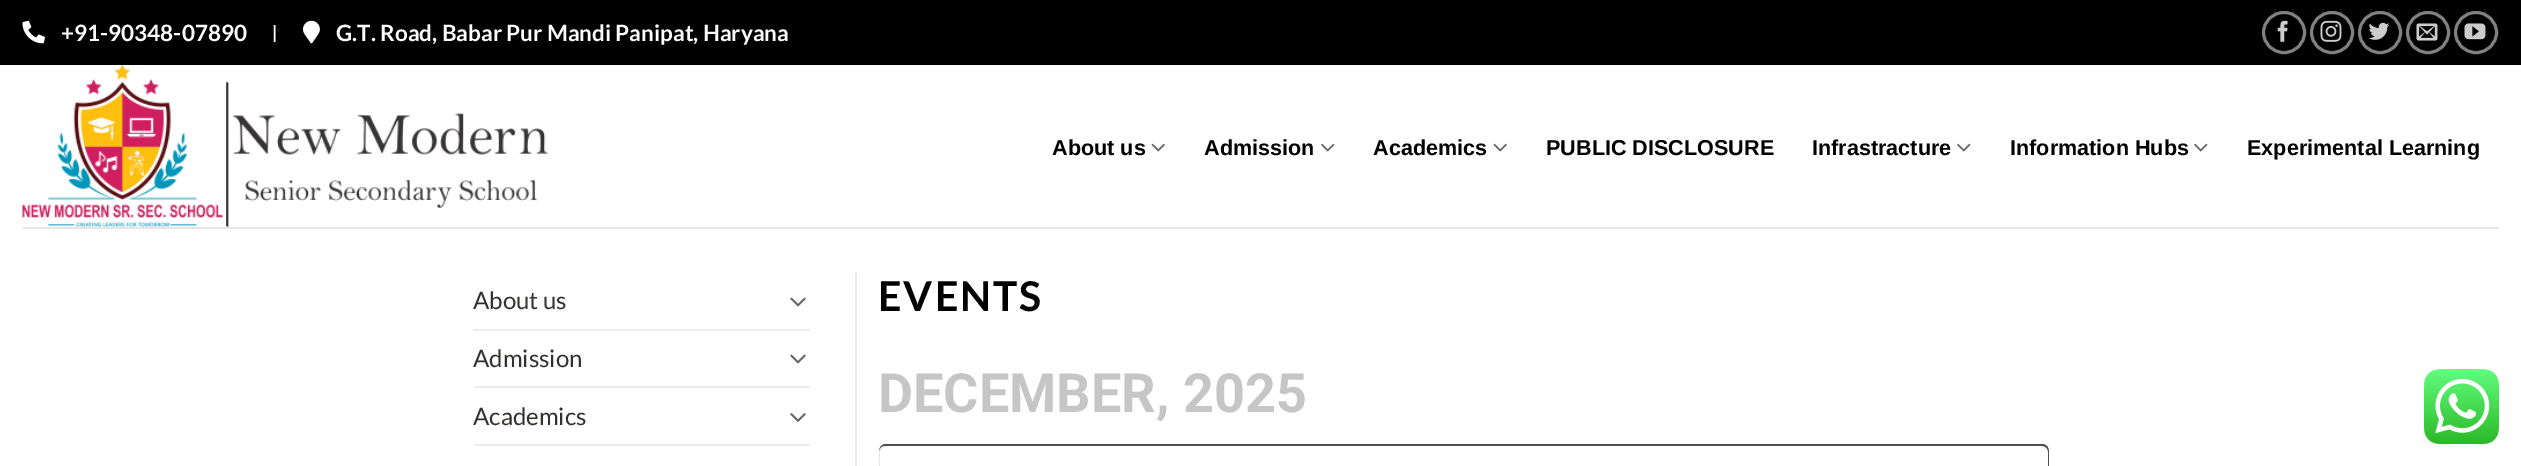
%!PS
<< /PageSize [2521 466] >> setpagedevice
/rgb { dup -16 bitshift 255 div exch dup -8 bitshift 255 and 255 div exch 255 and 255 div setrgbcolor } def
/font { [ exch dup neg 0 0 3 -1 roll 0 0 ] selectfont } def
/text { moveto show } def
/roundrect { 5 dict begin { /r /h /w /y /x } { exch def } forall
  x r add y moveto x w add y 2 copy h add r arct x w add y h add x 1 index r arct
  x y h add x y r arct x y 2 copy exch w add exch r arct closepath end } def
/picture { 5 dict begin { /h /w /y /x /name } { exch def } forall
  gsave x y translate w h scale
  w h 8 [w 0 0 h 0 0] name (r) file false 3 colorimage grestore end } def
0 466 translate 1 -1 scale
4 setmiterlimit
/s1 { /Lato-Bold 22.5 font 16#FFFFFF rgb } def
/s2 { /LiberationSans-Bold 21.6 font 16#000000 rgb } def
/s3 { /Lato-Regular 24 font 16#362F2F rgb } def
/s4 { /Roboto-Bold 54 font 16#C6C6C6 rgb } def
16#FFFFFF rgb
0 0 2521 466 rectfill
16#000000 rgb
0 0 2521 65 rectfill
(pic1.raw) 22 20 23 24 picture
s1
(+91-90348-07890) 61 41 text
/Lato-Bold 18 font
272 39 moveto 1 0 (|) ashow
(pic2.raw) 303 20 17 24 picture
s1
(G.T. Road, Babar Pur Mandi Panipat, Haryana) 336 41 text
16#808080 rgb
3 setlinewidth
2263.5 12.5 41 40 20 roundrect stroke
(pic3.raw) 2277 20 11 22 picture
2311.5 12.5 41 40 20 roundrect stroke
(pic4.raw) 2320 20 22 22 picture
2359.5 12.5 41 40 20 roundrect stroke
(pic5.raw) 2368 22 22 18 picture
2407.5 12.5 41 40 20 roundrect stroke
(pic6.raw) 2416 23 22 18 picture
2455.5 12.5 41 40 20 roundrect stroke
(pic7.raw) 2464 23 22 17 picture
(pic8.raw) 22 65 526 162 picture
s2
(About us) 1052 155 text
(pic9.raw) 1151 143 14 9 picture
(Admission) 1204 155 text
(pic10.raw) 1321 143 14 9 picture
(Academics) 1373 155 text
(pic9.raw) 1493 143 14 9 picture
(PUBLIC DISCLOSURE) 1546 155 text
(Infrastracture) 1812 155 text
(pic10.raw) 1957 143 14 9 picture
(Information Hubs) 2010 155 text
(pic10.raw) 2194 143 14 9 picture
(Experimental Learning) 2247 155 text
16#E6E6E6 rgb
23 227 2476 2 rectfill
16#ECECEC rgb
855 272 2 194 rectfill
s3
(About us) 473 309 text
(pic11.raw) 790 297 16 10 picture
16#ECECEC rgb
474 329 336 2 rectfill
s3
(Admission) 473 367 text
(pic11.raw) 790 354 16 10 picture
16#ECECEC rgb
474 386 336 2 rectfill
s3
(Academics) 473 425 text
(pic12.raw) 790 413 16 9 picture
16#ECECEC rgb
474 444 336 2 rectfill
/Lato-Bold 41 font
16#000000 rgb
878 311 moveto 2 0 (EVENTS) ashow
s4
(DECEMBER, 2025) 878 412 text
16#4F4F4F rgb
886 444 moveto 2042 444 lineto 2046 444 2049 447 2049 452 curveto 2049 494 lineto 2049 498 2046 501 2042 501 curveto 886 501 lineto 882 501 879 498 879 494 curveto 879 452 lineto 879 447 882 444 886 444 curveto closepath 886 446 moveto 2042 446 lineto 2045 446 2048 448 2048 452 curveto 2048 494 lineto 2048 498 2045 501 2042 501 curveto 886 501 lineto 882 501 879 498 879 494 curveto 879 452 lineto 879 448 882 446 886 446 curveto closepath eofill
16#E5E5E5 rgb
886 446 moveto 878 446 879 454 879 460 curveto 879 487 lineto 879 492 878 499 885 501 curveto 2041 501 lineto 2043 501 2046 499 2047 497 curveto 2045 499 2043 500 2040 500 curveto 886 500 lineto 883 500 880 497 880 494 curveto 880 453 lineto 880 449 883 446 886 446 curveto closepath fill
(pic13.raw) 2424 369 75 75 picture
showpage
